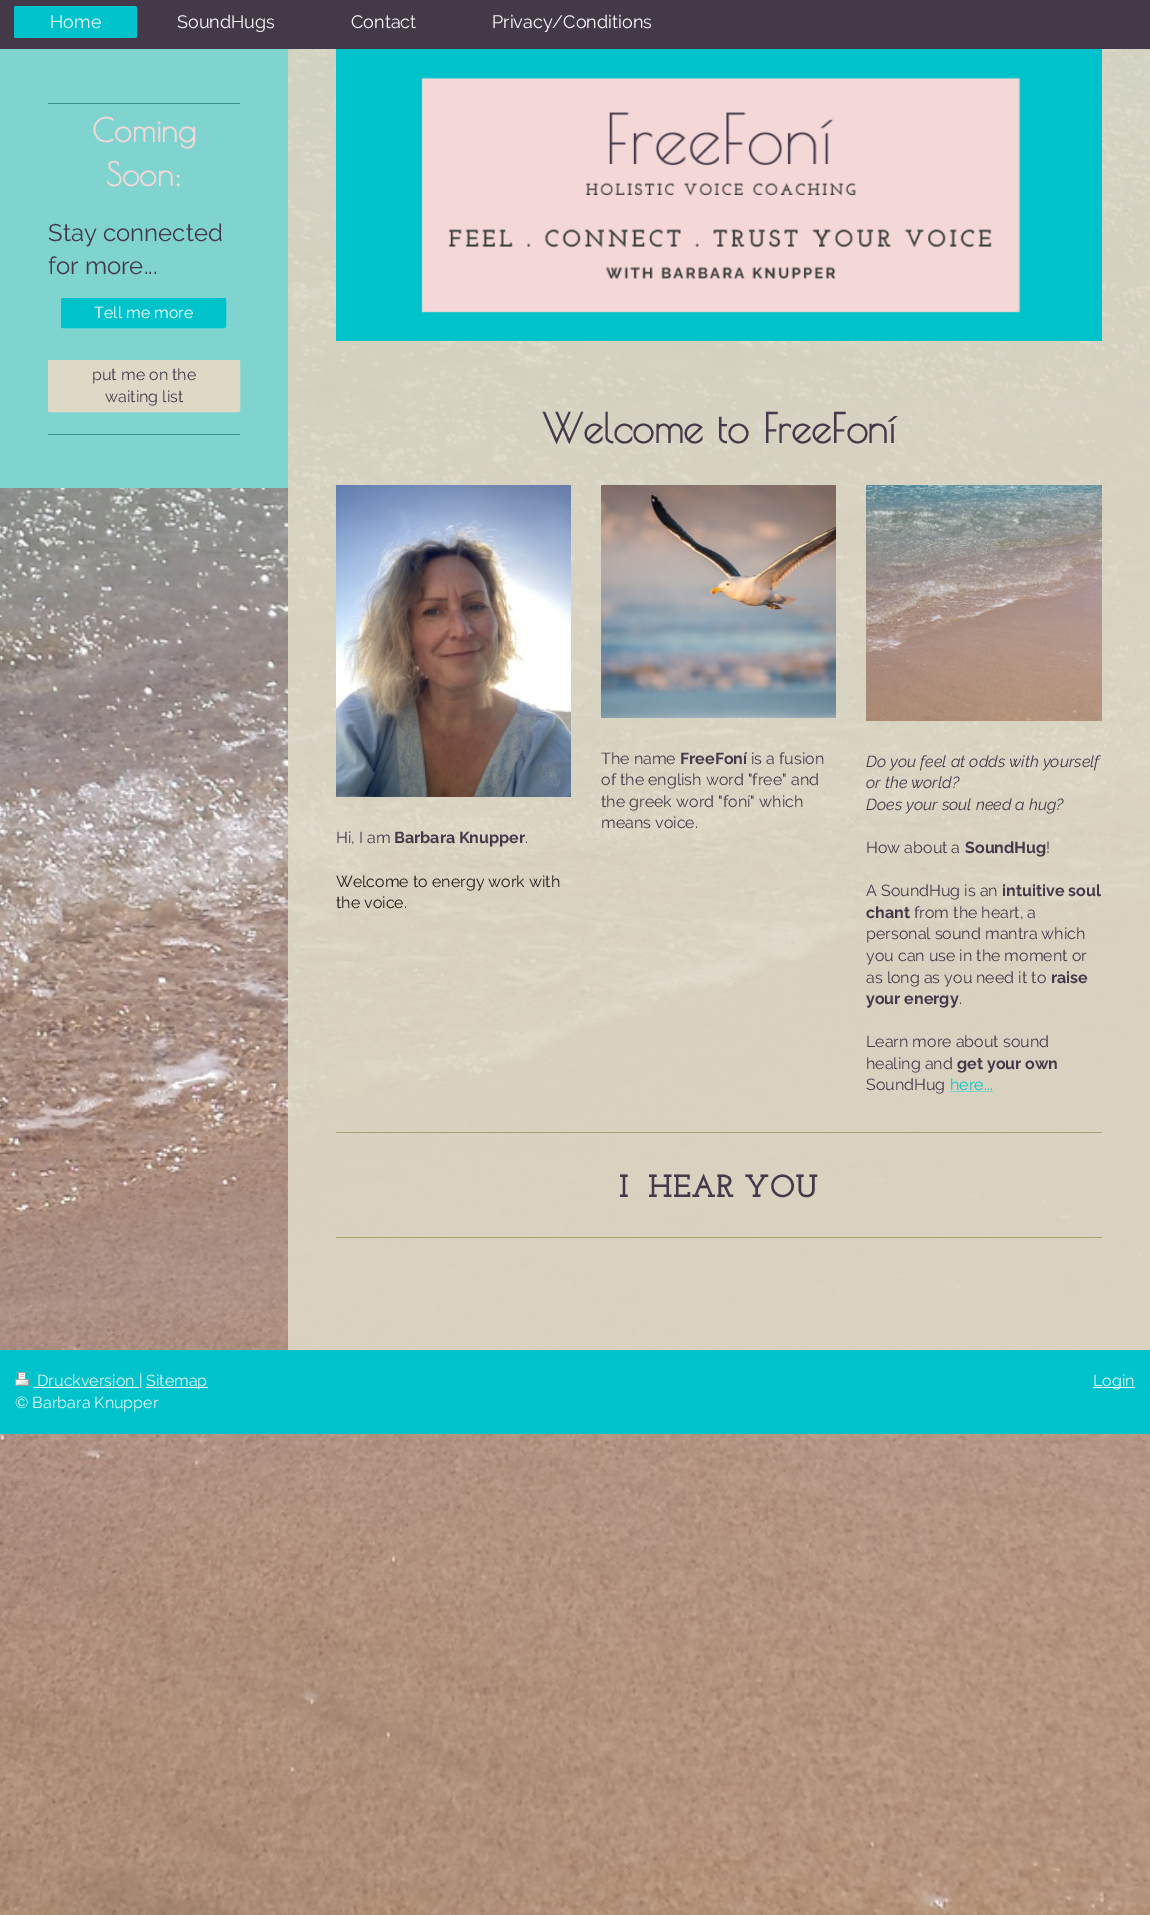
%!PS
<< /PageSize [1150 1915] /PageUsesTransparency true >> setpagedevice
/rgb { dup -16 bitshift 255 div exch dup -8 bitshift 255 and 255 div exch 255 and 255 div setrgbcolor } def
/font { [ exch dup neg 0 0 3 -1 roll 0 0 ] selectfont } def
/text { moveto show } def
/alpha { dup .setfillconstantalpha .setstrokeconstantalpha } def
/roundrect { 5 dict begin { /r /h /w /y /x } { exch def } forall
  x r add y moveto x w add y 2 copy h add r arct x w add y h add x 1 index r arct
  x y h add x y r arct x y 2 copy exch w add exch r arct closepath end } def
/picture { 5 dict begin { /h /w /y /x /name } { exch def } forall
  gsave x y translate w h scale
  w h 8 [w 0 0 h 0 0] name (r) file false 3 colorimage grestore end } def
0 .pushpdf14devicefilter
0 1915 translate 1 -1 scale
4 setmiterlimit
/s1 { /Raleway-Regular 18 font 16#E6F9FA rgb } def
/s2 { /Raleway-Regular 18 font 16#FFFFFF rgb } def
/s3 { /PoiretOne-Bold 32 font 16#F4D8D8 rgb } def
/s4 { /Raleway-Regular 24 font 16#443949 rgb } def
/s5 { /Raleway-Regular 16 font 16#FFFFFF rgb } def
/s6 { /Raleway-Regular 16 font 16#443949 rgb } def
/s7 { /PoiretOne-Bold 40 font 16#443949 rgb } def
/s8 { /Raleway-Bold 16 font 16#443949 rgb } def
/s9 { /Raleway-Regular 16 font 16#1E1C18 rgb } def
/s10 { /Raleway-Italic 16 font 16#443949 rgb } def
/s11 { /Raleway-Regular 16 font 16#00C2CB rgb } def
/s12 { /JosefinSlab-Bold 32 font 16#443949 rgb } def
/s13 { /Raleway-Regular 16 font 16#E6F9FA rgb } def
16#FFFFFF rgb
0 0 1150 1915 rectfill
(pic1.raw) 0 49 1150 1866 picture
16#443949 rgb
0 0 1150 49 rectfill
16#00C2CB rgb
14 6 123 32 2 roundrect fill
15 37 121 1 rectfill
s1
(Home) 50 28 text
s2
(SoundHugs) 177 28 text
(Contact) 351 28 text
(Privacy/Conditions) 492 28 text
16#80D4CF rgb
0 49 288 439 rectfill
16#37938D rgb
48 103 192 1 rectfill
s3
(Coming) 92 142 text
(Soon:) 106 186 text
s4
(Stay connected) 48 241 text
(for more...) 48 274 text
16#00C2CB rgb
61.5 298.5 164 29 1.5 roundrect gsave fill grestore
stroke
s5
(Tell me more) 94 318 text
16#DED9C7 rgb
48.5 360.5 191 51 1.5 roundrect gsave fill grestore
stroke
s6
(put me on the) 92 380 text
(waiting list) 105 402 text
16#37938D rgb
48 434 192 1 rectfill
0.9 alpha
16#DED9C7 rgb
288 49 862 1301 rectfill
1 alpha
(pic2.raw) 336 49 766 292 picture
s7
(Welcome to FreeFoní) 542 443 text
(pic3.raw) 336 485 235 312 picture
s6
(Hi, I am) 336 843 text
s8
(Barbara Knupper) 394 843 text
s6
(.) 525 843 text
s9
(Welcome to energy work with) 336 887 text
(the voice.) 336 908 text
(pic4.raw) 601 485 235 233 picture
s6
(The name) 601 764 text
s8
(FreeFoní) 680 764 text
s6
(is a fusion) 751 764 text
(of the english word "free" and) 601 785 text
(the greek word "foní" which) 601 807 text
(means voice.) 601 828 text
(pic5.raw) 866 485 236 236 picture
s10
(Do you feel at odds with yourself) 866 767 text
(or the world?) 866 788 text
(Does your soul need a hug?) 866 810 text
s6
(How about a) 866 853 text
s8
(SoundHug) 965 853 text
s6
(!) 1046 853 text
(A SoundHug is an) 866 896 text
s8
(intuitive soul) 1002 896 text
(chant) 866 918 text
s6
(from the heart, a) 914 918 text
(personal sound mantra which) 866 939 text
(you can use in the moment or) 866 961 text
(as long as you need it to) 866 983 text
s8
(raise) 1051 983 text
(your energy) 866 1004 text
s6
(.) 959 1004 text
(Learn more about sound) 866 1047 text
(healing and) 866 1069 text
s8
(get your own) 957 1069 text
s6
(SoundHug) 866 1090 text
s11
(here...) 950 1090 text
16#80D4CF rgb
950 1091 43 1 rectfill
16#AB9E70 rgb
336 1132 766 1 rectfill
s12
(I  HEAR YOU) 619 1197 text
16#AB9E70 rgb
336 1237 766 1 rectfill
16#00C2CB rgb
0 1350 1150 84 rectfill
(pic6.raw) 15 1372 14 14 picture
16#E6F9FA rgb
33 1387 106 1 rectfill
s13
(Druckversion |) 37 1386 text
146 1387 62 1 rectfill
(Sitemap) 146 1386 text
(© Barbara Knupper) 15 1408 text
1093 1387 42 1 rectfill
(Login) 1093 1386 text
.poppdf14devicefilter showpage
